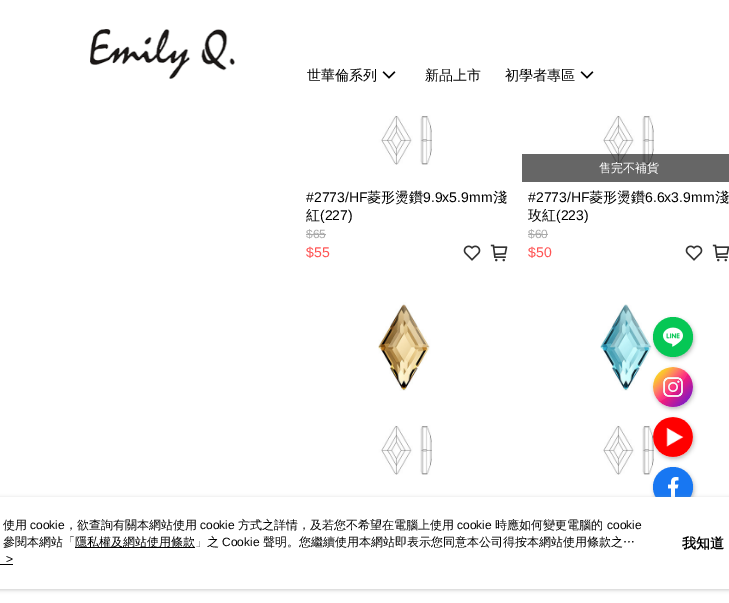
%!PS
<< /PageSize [729 603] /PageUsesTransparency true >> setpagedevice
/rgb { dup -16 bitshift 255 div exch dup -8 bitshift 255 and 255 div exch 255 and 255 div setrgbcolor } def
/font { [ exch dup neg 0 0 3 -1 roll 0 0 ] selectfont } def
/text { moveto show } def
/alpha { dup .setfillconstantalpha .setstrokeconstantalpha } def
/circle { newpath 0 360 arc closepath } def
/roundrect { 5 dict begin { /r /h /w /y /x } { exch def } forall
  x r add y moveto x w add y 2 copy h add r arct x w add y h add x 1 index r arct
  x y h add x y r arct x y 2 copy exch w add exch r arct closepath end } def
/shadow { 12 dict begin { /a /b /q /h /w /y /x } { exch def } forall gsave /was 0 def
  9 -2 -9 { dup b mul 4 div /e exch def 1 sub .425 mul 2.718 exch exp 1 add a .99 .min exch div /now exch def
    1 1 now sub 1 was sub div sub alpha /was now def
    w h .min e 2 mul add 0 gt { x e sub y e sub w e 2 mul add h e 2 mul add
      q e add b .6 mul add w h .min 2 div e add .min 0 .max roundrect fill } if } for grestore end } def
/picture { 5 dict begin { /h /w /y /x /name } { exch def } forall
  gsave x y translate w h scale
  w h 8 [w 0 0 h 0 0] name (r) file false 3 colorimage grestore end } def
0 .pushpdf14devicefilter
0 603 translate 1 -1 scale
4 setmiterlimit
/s1 { /WenQuanYiZenHei-Medium 14 font 16#000000 rgb } def
/s2 { /LiberationSans-Regular 14 font 16#000000 rgb } def
/s3 { /LiberationSans-Regular 12 font 16#AAAAAA rgb } def
/s4 { /LiberationSans-Regular 14 font 16#FF5353 rgb } def
/s5 { /WenQuanYiZenHei-Medium 12 font 16#FFFFFF rgb } def
/s6 { /WenQuanYiZenHei-Medium 12 font 16#000000 rgb } def
/s7 { /LiberationSans-Regular 12 font 16#000000 rgb } def
/s8 { /WenQuanYiZenHei-Bold 14 font 16#000000 rgb } def
16#FFFFFF rgb
0 0 729 603 rectfill
(pic1.raw) 90 29 145 50 picture
s1
(世華倫系列) 307 80 text
(pic2.raw) 382 71 14 8 picture
(新品上市) 425 80 text
(初學者專區) 505 80 text
(pic2.raw) 580 71 14 8 picture
(pic13.raw) 600 304 54 171 picture
654 319 40 40 20 2 0.25 shadow
16#06C755 rgb
673 337 20 circle fill
(pic3.raw) 663 327 20 20 picture
16#000000 rgb
654 369 40 40 20 2 0.25 shadow
16#FFFFFF rgb
673 387 20 circle fill
(pic4.raw) 653 367 40 40 picture
16#000000 rgb
654 419 40 40 20 2 0.25 shadow
16#FFFFFF rgb
673 437 20 circle fill
(pic5.raw) 653 417 40 40 picture
16#000000 rgb
654 469 40 40 20 2 0.25 shadow
16#1877F2 rgb
673 487 20 circle fill
(pic6.raw) 668 477 11 20 picture
(pic7.raw) 377 100 55 65 picture
s2
(#2773/HF) 306 202 text
s1
(菱形燙鑽) 367 202 text
s2
(9.9x5.9mm) 423 202 text
s1
(淺) 493 202 text
(紅) 306 220 text
s2
(\(227\)) 320 220 text
s3
($65) 306 238 text
306 234 20 1 rectfill
s4
($55) 306 257 text
(pic8.raw) 463 245 18 16 picture
(pic9.raw) 490 244 18 18 picture
(pic10.raw) 600 100 54 65 picture
0.6 alpha
16#000000 rgb
522 154 207 28 rectfill
1 alpha
s5
(售完不補貨) 599 172 text
s2
(#2773/HF) 528 202 text
s1
(菱形燙鑽) 589 202 text
s2
(6.6x3.9mm) 645 202 text
s1
(淺) 715 202 text
(玫紅) 528 220 text
s2
(\(223\)) 556 220 text
s3
($60) 528 238 text
528 234 20 1 rectfill
s4
($50) 528 257 text
(pic8.raw) 685 245 18 16 picture
(pic11.raw) 712 244 17 18 picture
(pic12.raw) 378 302 54 173 picture
16#979797 rgb
-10 498 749 92 4 2 0.5 shadow
16#FFFFFF rgb
0 497 729 92 rectfill
s6
(使用) 3 529 text
s7
(cookie) 30 529 text
s6
(，欲查詢有關本網站使用) 65 529 text
s7
(cookie) 200 529 text
s6
(方式之詳情，及若您不希望在電腦上使用) 238 529 text
s7
(cookie) 457 529 text
s6
(時應如何變更電腦的) 495 529 text
s7
(cookie) 607 529 text
s6
(參閱本網站「) 3 546 text
75 547 120 1 rectfill
(隱私權及網站使用條款」之) 75 546 text
s7
(Cookie) 222 546 text
s6
(聲明。您繼續使用本網站即表示您同意本公司得按本網站使用條款之…) 263 546 text
s7
(>) 6 563 text
0 564 13 1 rectfill
s8
(我知道) 682 548 text
.poppdf14devicefilter showpage
